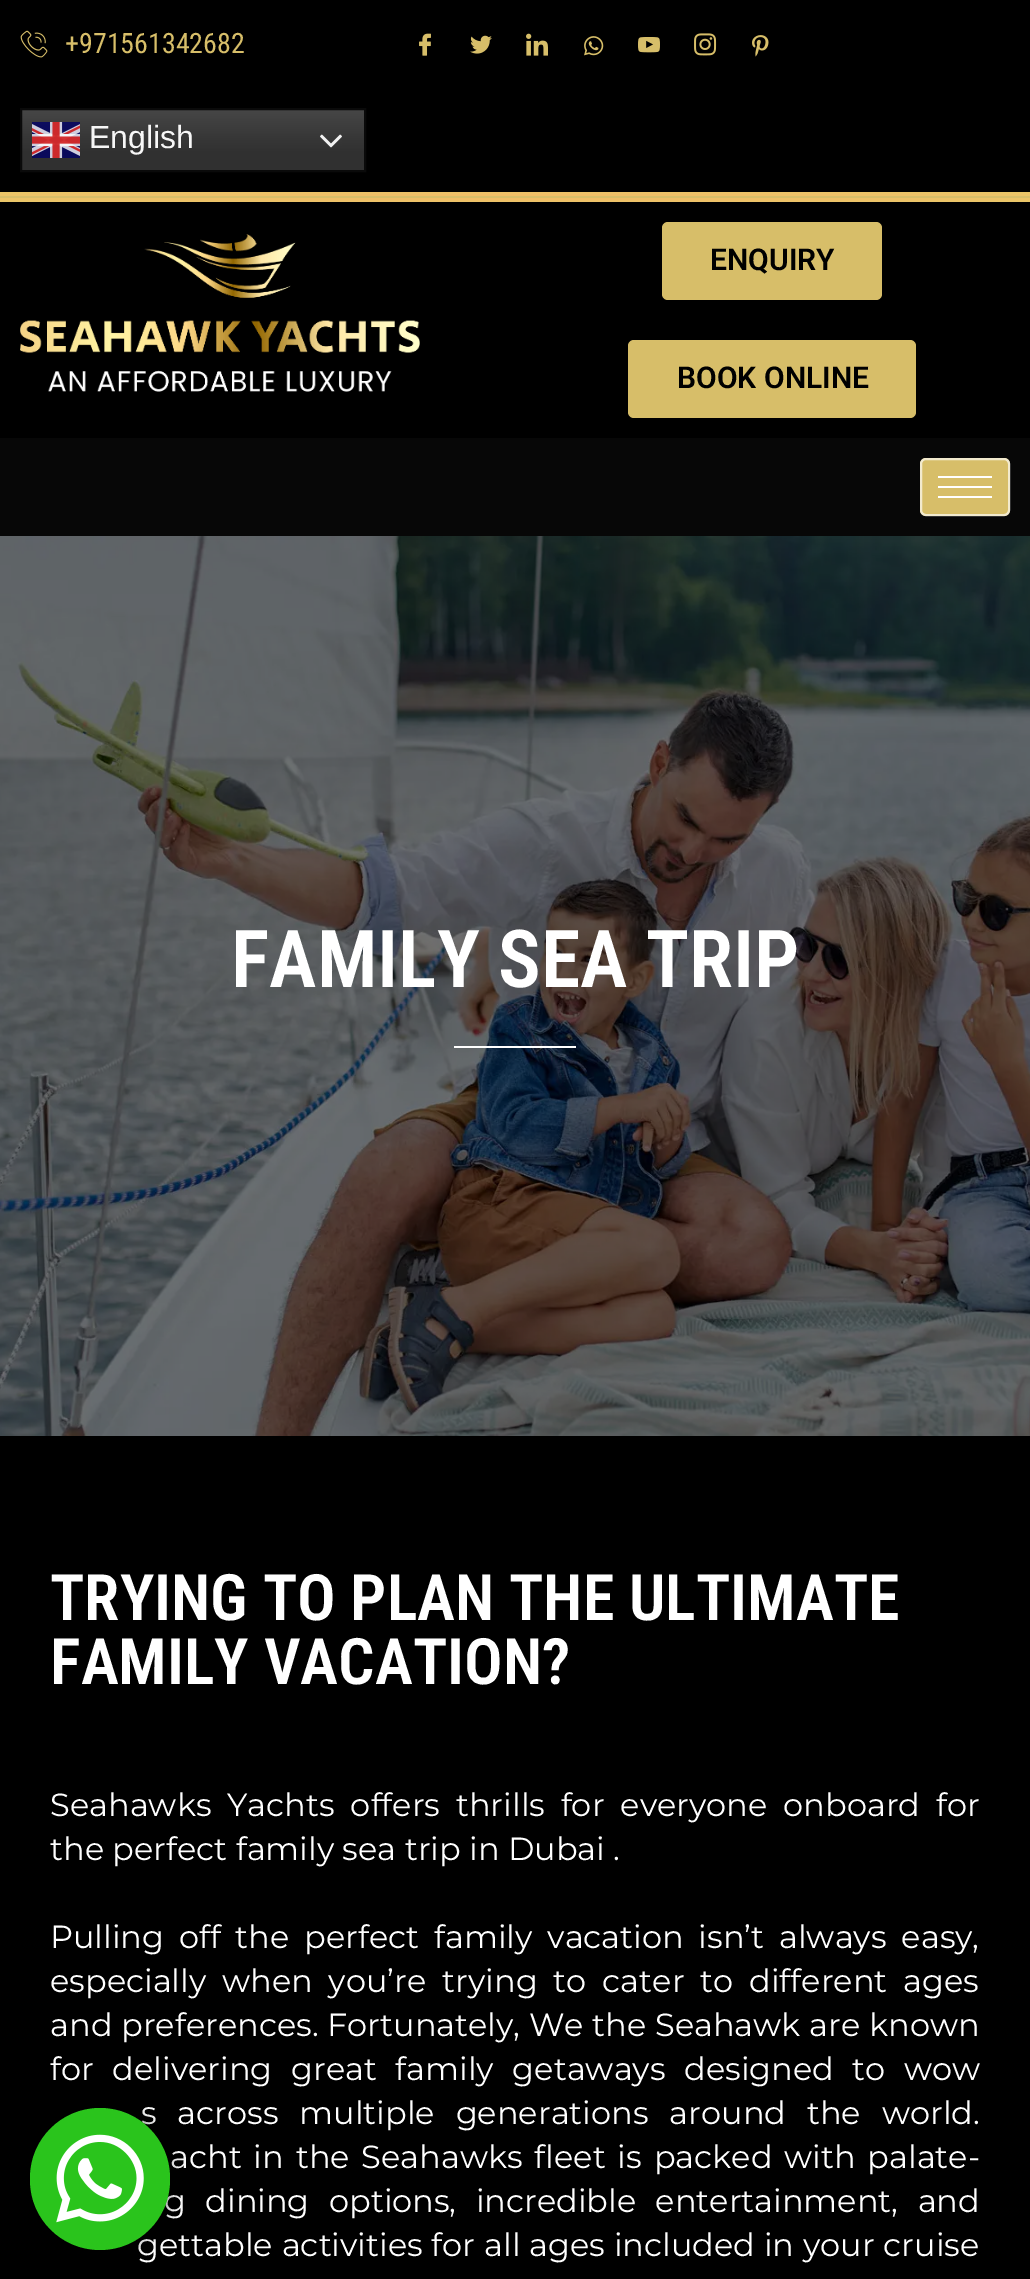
%!PS
<< /PageSize [1030 2279] /PageUsesTransparency true >> setpagedevice
/rgb { dup -16 bitshift 255 div exch dup -8 bitshift 255 and 255 div exch 255 and 255 div setrgbcolor } def
/font { [ exch dup neg 0 0 3 -1 roll 0 0 ] selectfont } def
/text { moveto show } def
/alpha { dup .setfillconstantalpha .setstrokeconstantalpha } def
/roundrect { 5 dict begin { /r /h /w /y /x } { exch def } forall
  x r add y moveto x w add y 2 copy h add r arct x w add y h add x 1 index r arct
  x y h add x y r arct x y 2 copy exch w add exch r arct closepath end } def
/shadow { 12 dict begin { /a /b /q /h /w /y /x } { exch def } forall gsave /was 0 def
  9 -2 -9 { dup b mul 4 div /e exch def 1 sub .425 mul 2.718 exch exp 1 add a .99 .min exch div /now exch def
    1 1 now sub 1 was sub div sub alpha /was now def
    w h .min e 2 mul add 0 gt { x e sub y e sub w e 2 mul add h e 2 mul add
      q e add b .6 mul add w h .min 2 div e add .min 0 .max roundrect fill } if } for grestore end } def
/picture { 5 dict begin { /h /w /y /x /name } { exch def } forall
  gsave x y translate w h scale
  w h 8 [w 0 0 h 0 0] name (r) file false 3 colorimage grestore end } def
0 .pushpdf14devicefilter
0 2279 translate 1 -1 scale
4 setmiterlimit
/s1 { /RobotoCondensed-Regular 28 font 16#D7BE69 rgb } def
/s2 { /LiberationSans-Regular 32 font 16#F7F7F7 rgb } def
/s3 { /Roboto-SemiBold 30 font 16#000000 rgb } def
/s4 { /RobotoCondensed-SemiBold 80 font 16#FFFFFF rgb } def
/s5 { /RobotoCondensed-SemiBold 64 font 16#FFFFFF rgb } def
/s6 { /Montserrat-Regular 32 font 16#FFFFFF rgb } def
16#000000 rgb
0 0 1030 2279 rectfill
(pic1.raw) 20 30 28 28 picture
s1
(+971561342682) 65 53 text
(pic2.raw) 419 33 12 23 picture
(pic3.raw) 470 35 22 19 picture
(pic4.raw) 526 33 22 23 picture
(pic5.raw) 584 36 20 20 picture
(pic6.raw) 638 37 22 16 picture
(pic7.raw) 694 33 23 23 picture
(pic8.raw) 752 35 17 22 picture
gsave 22 110 moveto 364 110 lineto 364 170 lineto 22 170 lineto closepath clip newpath
<< /ShadingType 2 /ColorSpace /DeviceRGB /Coords [193 108 193 172] /Extend [true true] /Function << /FunctionType 3 /Domain [0 1] /Functions [<< /FunctionType 2 /Domain [0 1] /C0 [0.278 0.278 0.278] /C1 [0.188 0.188 0.188] /N 1 >> << /FunctionType 2 /Domain [0 1] /C0 [0.188 0.188 0.188] /C1 [0.188 0.188 0.188] /N 1 >>] /Bounds [0.7] /Encode [0 1 0 1] >> >> shfill grestore
16#0A0A0A rgb
2 setlinewidth
21 109 344 62 rectstroke
(pic9.raw) 32 122 48 36 picture
s2
(English) 89 148 text
(pic10.raw) 320 134 22 14 picture
gsave 0 192 moveto 1030 192 lineto 1030 202 lineto 0 202 lineto closepath clip newpath 515 197 translate 728 7.1 scale
<< /ShadingType 3 /ColorSpace /DeviceRGB /Coords [0 0 0 0 0 1] /Extend [true true] /Function << /FunctionType 2 /Domain [0 1] /C0 [0.953 0.733 0.4] /C1 [0.918 0.78 0.412] /N 1 >> >> shfill grestore
16#D7BE69 rgb
0 196 1030 2 rectfill
(pic11.raw) 20 234 400 158 picture
662 222 220 78 6 roundrect fill
s3
(ENQUIRY) 710 270 text
16#D7BE69 rgb
628 340 288 78 6 roundrect fill
s3
(BOOK ONLINE) 677 388 text
16#070707 rgb
0 438 1030 98 rectfill
16#D7BE69 rgb
920 458 90 58 6 roundrect fill
0.67 alpha
16#FFFFFF rgb
921 459 88 56 5 roundrect stroke
1 alpha
938 476 54 2 rectfill
938 486 54 2 rectfill
938 496 54 2 rectfill
(pic12.raw) 0 536 1030 900 picture
s4
(FAMILY SEA TRIP) 231 987 text
454 1046 122 2 rectfill
s5
(TRYING TO PLAN THE ULTIMATE) 50 1620 text
(FAMILY VACATION?) 50 1684 text
/Montserrat-Regular 32 font
50 1816 moveto 7.5 0 32 (Seahawks Yachts offers thrills for everyone onboard for) widthshow
(the perfect family sea trip in Dubai .) 50 1860 text
50 1948 moveto 6.5 0 32 (Pulling off the perfect family vacation isn’t always easy,) widthshow
50 1992 moveto 7.5 0 32 (especially when you’re trying to cater to different ages) widthshow
50 2036 moveto 0.25 0 32 (and preferences. Fortunately, We the Seahawk are known) widthshow
50 2080 moveto 10.25 0 32 (for delivering great family getaways designed to wow) widthshow
141 2124 moveto 12.5 0 32 (s across multiple generations around the world.) widthshow
170 2168 moveto 3.5 0 32 (acht in the Seahawks fleet is packed with palate-) widthshow
164 2212 moveto 11 0 32 (g dining options, incredible entertainment, and) widthshow
137 2256 moveto 0.5 0 32 (gettable activities for all ages included in your cruise) widthshow
16#000000 rgb
30 2108 140 142 70 10 0.5 shadow
16#2AC41C rgb
30 2108 140 142 70 roundrect fill
(pic13.raw) 56 2134 88 89 picture
.poppdf14devicefilter showpage
